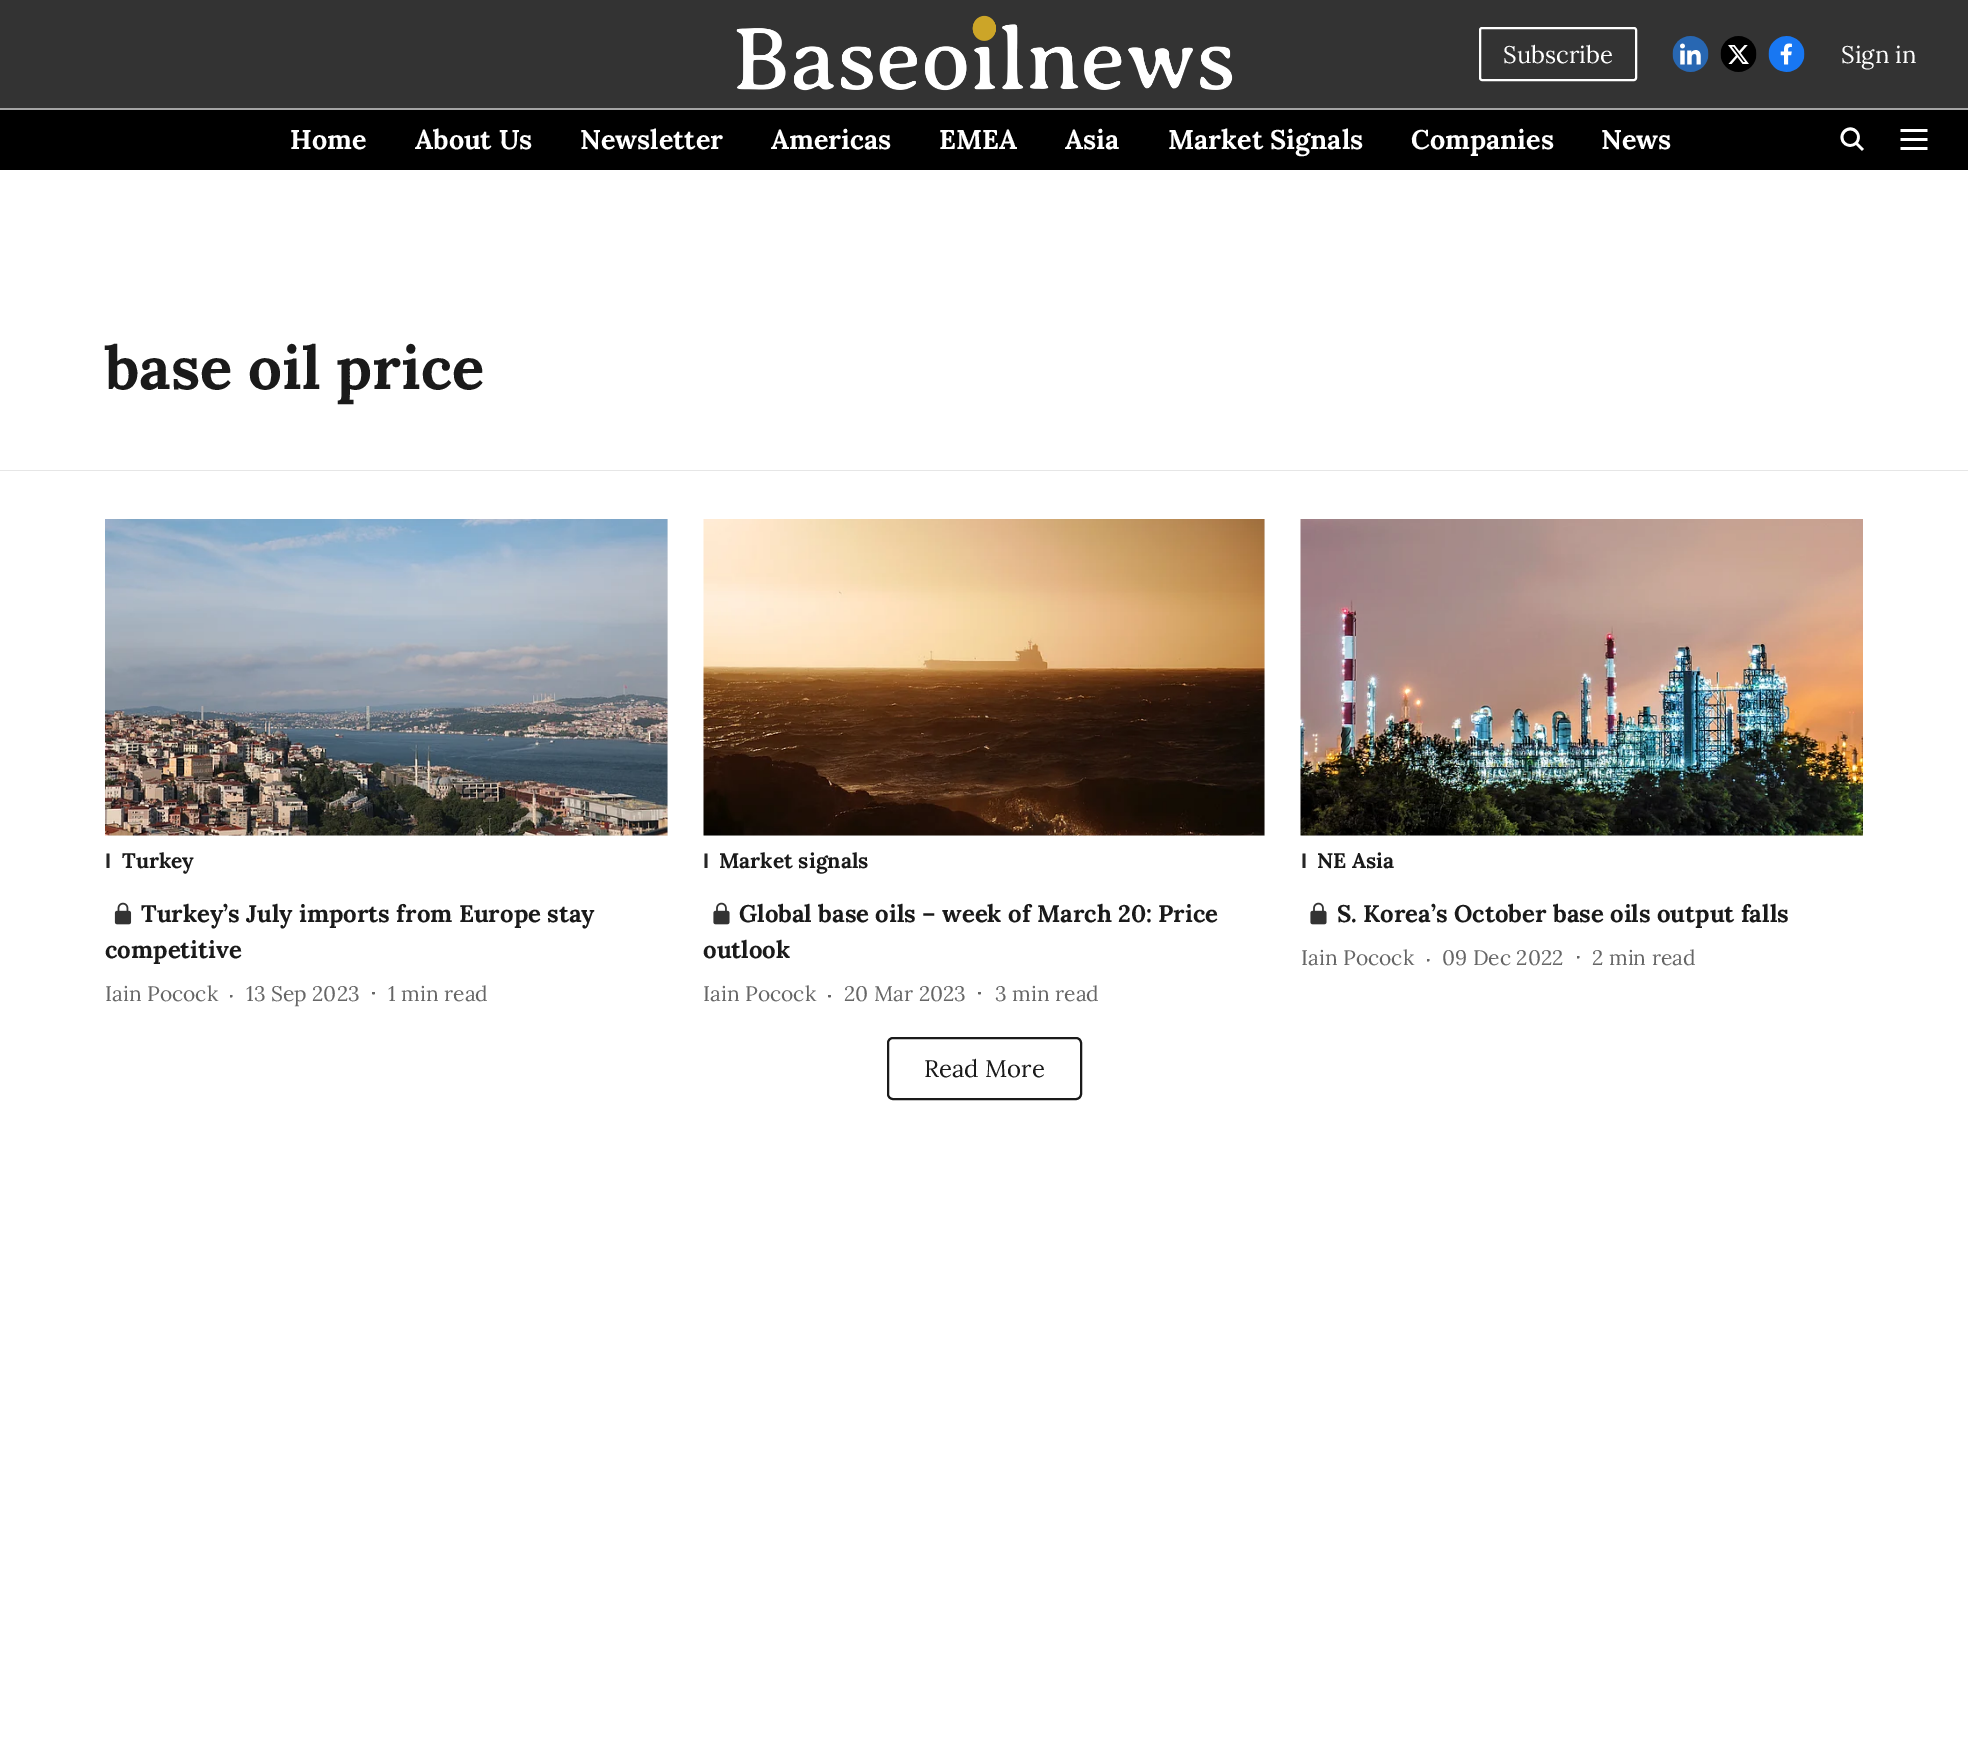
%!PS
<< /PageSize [1968 1741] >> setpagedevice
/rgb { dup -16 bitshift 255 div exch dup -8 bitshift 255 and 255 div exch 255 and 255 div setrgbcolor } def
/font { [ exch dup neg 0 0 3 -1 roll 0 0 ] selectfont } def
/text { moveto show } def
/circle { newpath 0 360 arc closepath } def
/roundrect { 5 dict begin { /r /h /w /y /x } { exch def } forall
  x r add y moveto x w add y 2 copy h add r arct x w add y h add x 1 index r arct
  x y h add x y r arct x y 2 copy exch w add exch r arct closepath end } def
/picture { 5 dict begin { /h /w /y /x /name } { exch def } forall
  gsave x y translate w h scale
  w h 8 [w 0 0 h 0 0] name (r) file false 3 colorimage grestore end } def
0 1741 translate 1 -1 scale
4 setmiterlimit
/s1 { /Lora-Regular 24 font 16#FFFFFF rgb } def
/s2 { /Lora-Bold 27 font 16#FFFFFF rgb } def
/s3 { /Lora-Bold 60 font 16#1A1A1A rgb } def
/s4 { /LiberationSans-Bold 21 font 16#262626 rgb } def
/s5 { /Lora-Bold 21 font 16#1A1A1A rgb } def
/s6 { /Lora-Bold 24 font 16#1A1A1A rgb } def
/s7 { /Lora-Regular 21 font 16#666666 rgb } def
/s8 { /Lora-Regular 24 font 16#1A1A1A rgb } def
16#FFFFFF rgb
0 0 1968 1741 rectfill
16#333333 rgb
0 0 1968 108 rectfill
16#A4A4A4 rgb
0 108 1968 2 rectfill
(pic1.raw) 736 15 497 76 picture
16#FFFFFF rgb
2 setlinewidth
1480 28 156 52 2 roundrect stroke
s1
(Subscribe) 1503 63 text
(pic2.raw) 1672 36 37 36 picture
(pic3.raw) 1720 36 37 36 picture
(pic4.raw) 1768 36 37 36 picture
(Sign in) 1841 63 text
16#000000 rgb
0 110 1968 60 rectfill
s2
(Home) 290 149 text
(About Us) 415 149 text
(Newsletter) 580 149 text
(Americas) 771 149 text
(EMEA) 939 149 text
(Asia) 1065 149 text
(Market Signals) 1168 149 text
(Companies) 1411 149 text
(News) 1601 149 text
(pic5.raw) 1840 127 24 24 picture
(pic6.raw) 1900 129 28 21 picture
16#E6E6E6 rgb
0 470 1968 1 rectfill
s3
(base oil price) 105 389 text
16#F0F0F0 rgb
105 519 563 317 rectfill
(pic7.raw) 105 519 563 317 picture
s4
(I) 105 868 text
s5
(Turkey) 122 868 text
(pic8.raw) 114 902 18 23 picture
s6
(Turkey’s July imports from Europe stay) 141 922 text
(competitive) 105 958 text
s7
(Iain Pocock) 105 1001 text
gsave
230 995 5 5 rectclip
231 996 1.5 circle fill
grestore
(13 Sep 2023) 246 1001 text
gsave
372 992 5 5 rectclip
373.5 993 1.5 circle fill
grestore
(1 min read) 388 1001 text
16#F0F0F0 rgb
704 519 561 317 rectfill
(pic9.raw) 703 519 562 317 picture
s4
(I) 703 868 text
s5
(Market signals) 719 868 text
(pic10.raw) 713 902 17 23 picture
s6
(Global base oils – week of March 20: Price) 739 922 text
(outlook) 703 958 text
s7
(Iain Pocock) 703 1001 text
gsave
828 995 5 5 rectclip
829.5 996 1.5 circle fill
grestore
(20 Mar 2023) 844 1001 text
gsave
978 992 5 5 rectclip
979.5 993 1.5 circle fill
grestore
(3 min read) 995 1001 text
16#F0F0F0 rgb
1301 835 562 1 rectfill
(pic11.raw) 1300 519 563 317 picture
s4
(I) 1301 868 text
s5
(NE Asia) 1317 868 text
(pic10.raw) 1310 902 17 23 picture
s6
(S. Korea’s October base oils output falls) 1337 922 text
s7
(Iain Pocock) 1301 965 text
gsave
1427 959 5 5 rectclip
1428 960 1.5 circle fill
grestore
(09 Dec 2022) 1442 965 text
gsave
1577 956 5 5 rectclip
1578 957 1.5 circle fill
grestore
(2 min read) 1592 965 text
16#1A1A1A rgb
888 1038 193 61 5 roundrect stroke
s8
(Read More) 924 1077 text
showpage
